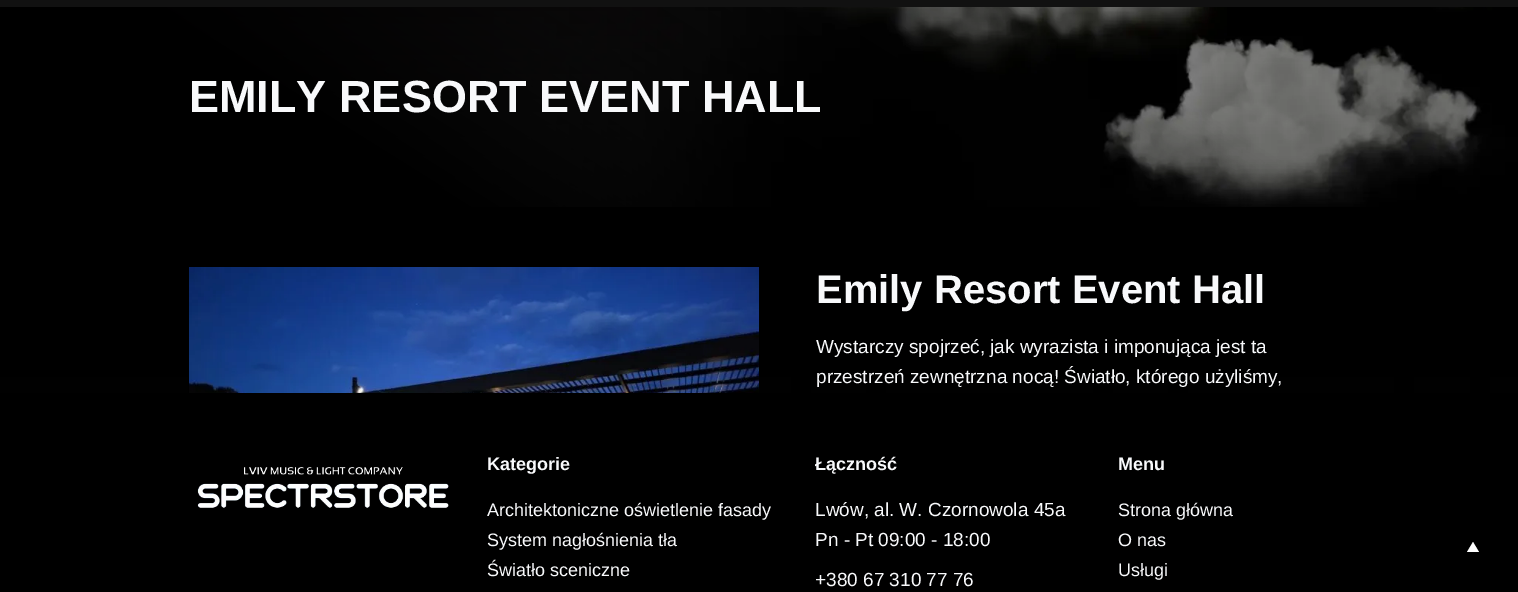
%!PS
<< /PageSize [1518 592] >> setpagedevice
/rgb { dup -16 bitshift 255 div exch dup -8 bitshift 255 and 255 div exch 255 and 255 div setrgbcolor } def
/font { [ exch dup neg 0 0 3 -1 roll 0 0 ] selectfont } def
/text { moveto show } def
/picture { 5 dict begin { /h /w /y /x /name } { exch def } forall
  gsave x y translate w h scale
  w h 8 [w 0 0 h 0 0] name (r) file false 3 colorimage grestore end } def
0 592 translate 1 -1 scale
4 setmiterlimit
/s1 { /LiberationSans-Bold 45 font 16#F8F9FB rgb } def
/s2 { /LiberationSans-Bold 40 font 16#F8F9FB rgb } def
/s3 { /LiberationSans-Regular 19 font 16#F8F9FB rgb } def
/s4 { /LiberationSans-Bold 18 font 16#F8F9FB rgb } def
/s5 { /LiberationSans-Regular 18 font 16#F8F9FB rgb } def
16#FFFFFF rgb
0 0 1518 592 rectfill
16#111111 rgb
0 0 1518 7 rectfill
(pic1.raw) 0 7 1518 200 picture
s1
(EMILY RESORT EVENT HALL) 189 112 text
(pic2.raw) 0 207 1518 186 picture
(pic3.raw) 189 267 570 126 picture
s2
(Emily Resort Event Hall) 816 303 text
s3
(Wystarczy spojrzeć, jak wyrazista i imponująca jest ta) 816 353 text
(przestrzeń zewnętrzna nocą! Światło, którego użyliśmy,) 816 383 text
16#000000 rgb
0 393 1518 199 rectfill
(pic4.raw) 197 467 252 41 picture
s4
(Kategorie) 487 470 text
s5
(Architektoniczne oświetlenie fasady) 487 516 text
(System nagłośnienia tła) 487 546 text
(Światło sceniczne) 487 576 text
s4
(Łączność) 815 470 text
s3
(Lwów, al. W. Czornowola 45a) 815 516 text
(Pn - Pt 09:00 - 18:00) 815 546 text
(+380 67 310 77 76) 815 586 text
s4
(Menu) 1118 470 text
s5
(Strona główna) 1118 516 text
(O nas) 1118 546 text
(Usługi) 1118 576 text
16#FFFFFF rgb
1479 552 moveto 1467 552 lineto 1473 542 lineto closepath fill
showpage
